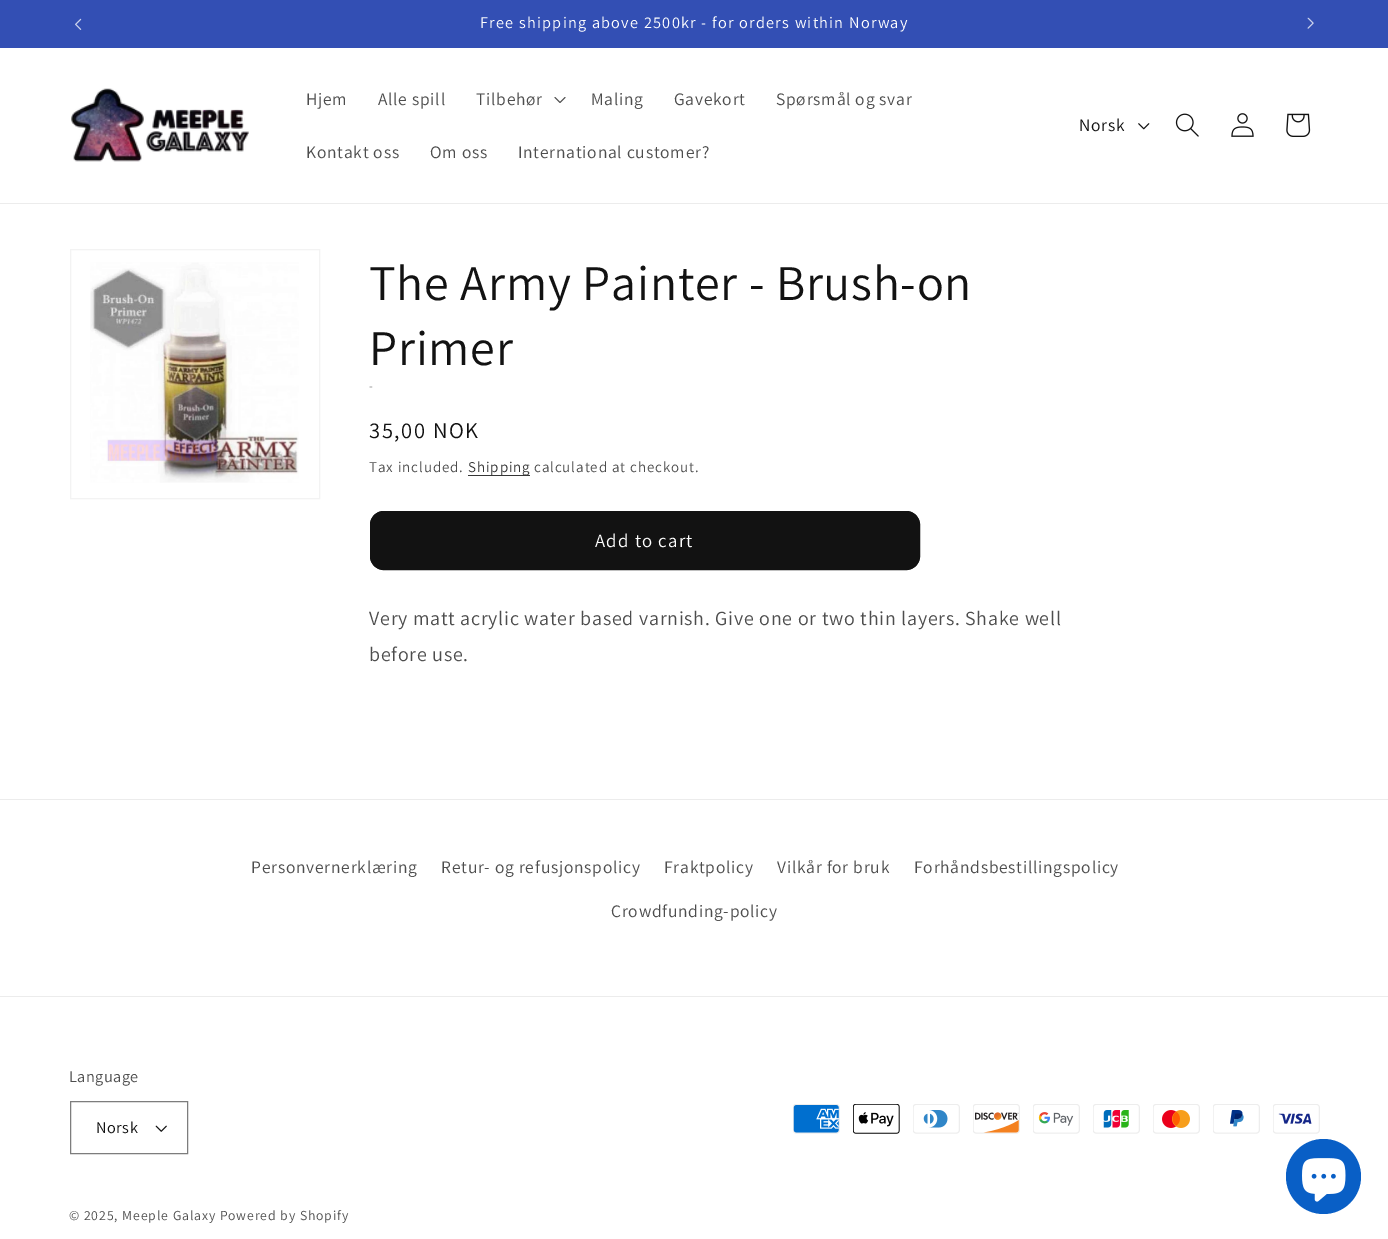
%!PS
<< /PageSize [1388 1239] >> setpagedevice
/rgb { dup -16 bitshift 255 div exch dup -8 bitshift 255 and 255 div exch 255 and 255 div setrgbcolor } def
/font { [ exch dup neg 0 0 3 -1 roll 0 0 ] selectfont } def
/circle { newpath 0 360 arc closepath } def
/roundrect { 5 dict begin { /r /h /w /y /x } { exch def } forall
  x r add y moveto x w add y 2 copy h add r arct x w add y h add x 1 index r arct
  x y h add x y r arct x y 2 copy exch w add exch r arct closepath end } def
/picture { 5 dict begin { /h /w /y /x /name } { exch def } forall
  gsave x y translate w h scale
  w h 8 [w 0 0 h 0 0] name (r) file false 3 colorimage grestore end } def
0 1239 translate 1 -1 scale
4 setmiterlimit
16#FFFFFF rgb
0 0 1388 1239 rectfill
16#334FB4 rgb
0 0 1388 48 rectfill
(pic1.raw) 75 18 7 12 picture
/Assistant-Regular 16.25 font
16#FFFFFF rgb
480 28 moveto 1.25 0 (Free shipping above 2500kr - for orders within Norway) ashow
(pic2.raw) 1307 17 7 12 picture
16#ECECEC rgb
0 203 1388 1 rectfill
(pic3.raw) 71 88 178 74 picture
/Assistant-Regular 17.5 font
16#4D4D4D rgb
306 105 moveto 0.75 0 (Hjem) ashow
378 105 moveto 0.75 0 (Alle spill) ashow
476 105 moveto 0.75 0 (Tilbehør) ashow
(pic4.raw) 554 97 12 6 picture
591 105 moveto 0.75 0 (Maling) ashow
674 105 moveto 0.75 0 (Gavekort) ashow
776 105 moveto 0.75 0 (Spørsmål og svar) ashow
306 158 moveto 0.75 0 (Kontakt oss) ashow
430 158 moveto 0.75 0 (Om oss) ashow
518 158 moveto 0.75 0 (International customer?) ashow
16#121212 rgb
1079 131 moveto 0.75 0 (Norsk) ashow
(pic5.raw) 1138 123 12 7 picture
(pic6.raw) 1175 113 24 24 picture
(pic7.raw) 1231 113 23 24 picture
(pic8.raw) 1286 113 25 24 picture
16#F3F3F3 rgb
70.5 249.5 249 249 rectstroke
(pic9.raw) 90 262 209 221 picture
/Assistant-Regular 50 font
16#121212 rgb
369 300 moveto 0.75 0 (The Army Painter - Brush-on) ashow
369 365 moveto 0.75 0 (Primer) ashow
/Assistant-Regular 12 font
16#4D4D4D rgb
369 390 moveto 1.6 0 (-) ashow
/Assistant-Regular 22.5 font
16#121212 rgb
369 438 moveto 1.6 0 (35,00 NOK) ashow
/Assistant-Regular 15 font
16#4D4D4D rgb
369 472 moveto 0.9 0 (Tax included.) ashow
16#363636 rgb
468 475 62 1 rectfill
16#353535 rgb
468 472 moveto 0.9 0 (Shipping) ashow
16#4D4D4D rgb
534 472 moveto 0.9 0 (calculated at checkout.) ashow
16#121212 rgb
370 511 550 59 14 roundrect fill
370.5 511.5 549 58 13.5 roundrect stroke
/Assistant-Regular 18.75 font
16#FFFFFF rgb
595 547 moveto 1.25 0 (Add to cart) ashow
/Assistant-Regular 20 font
16#4D4D4D rgb
369 625 moveto 0.75 0 (Very matt acrylic water based varnish. Give one or two thin layers. Shake well) ashow
369 661 moveto 0.75 0 (before use.) ashow
16#ECECEC rgb
0 799 1388 1 rectfill
/Assistant-Regular 17.5 font
16#4D4D4D rgb
251 873 moveto 0.75 0 (Personvernerklæring) ashow
441 873 moveto 0.75 0 (Retur- og refusjonspolicy) ashow
664 873 moveto 0.75 0 (Fraktpolicy) ashow
777 873 moveto 0.75 0 (Vilkår for bruk) ashow
914 873 moveto 0.75 0 (Forhåndsbestillingspolicy) ashow
611 917 moveto 0.75 0 (Crowdfunding-policy) ashow
16#ECECEC rgb
0 996 1388 1 rectfill
/Assistant-Regular 16.25 font
16#4D4D4D rgb
69 1082 moveto 0.5 0 (Language) ashow
(pic10.raw) 155 1125 12 7 picture
16#7D7D7D rgb
70.5 1101.5 117 52 rectstroke
16#121212 rgb
96 1133 moveto 0.5 0 (Norsk) ashow
(pic11.raw) 793 1104 47 30 picture
(pic12.raw) 853 1104 47 30 picture
(pic13.raw) 913 1104 47 30 picture
(pic14.raw) 973 1104 47 30 picture
(pic15.raw) 1033 1104 47 30 picture
(pic16.raw) 1093 1104 47 30 picture
(pic17.raw) 1153 1104 47 30 picture
(pic18.raw) 1213 1104 47 30 picture
(pic19.raw) 1273 1104 47 30 picture
/Assistant-Regular 13.75 font
16#4D4D4D rgb
69 1220 moveto 0.9 0 (© 2025, Meeple Galaxy Powered by Shopify) ashow
16#095FC6 rgb
1323.5 1176.5 37.5 circle fill
(pic20.raw) 1302 1158 44 44 picture
showpage
